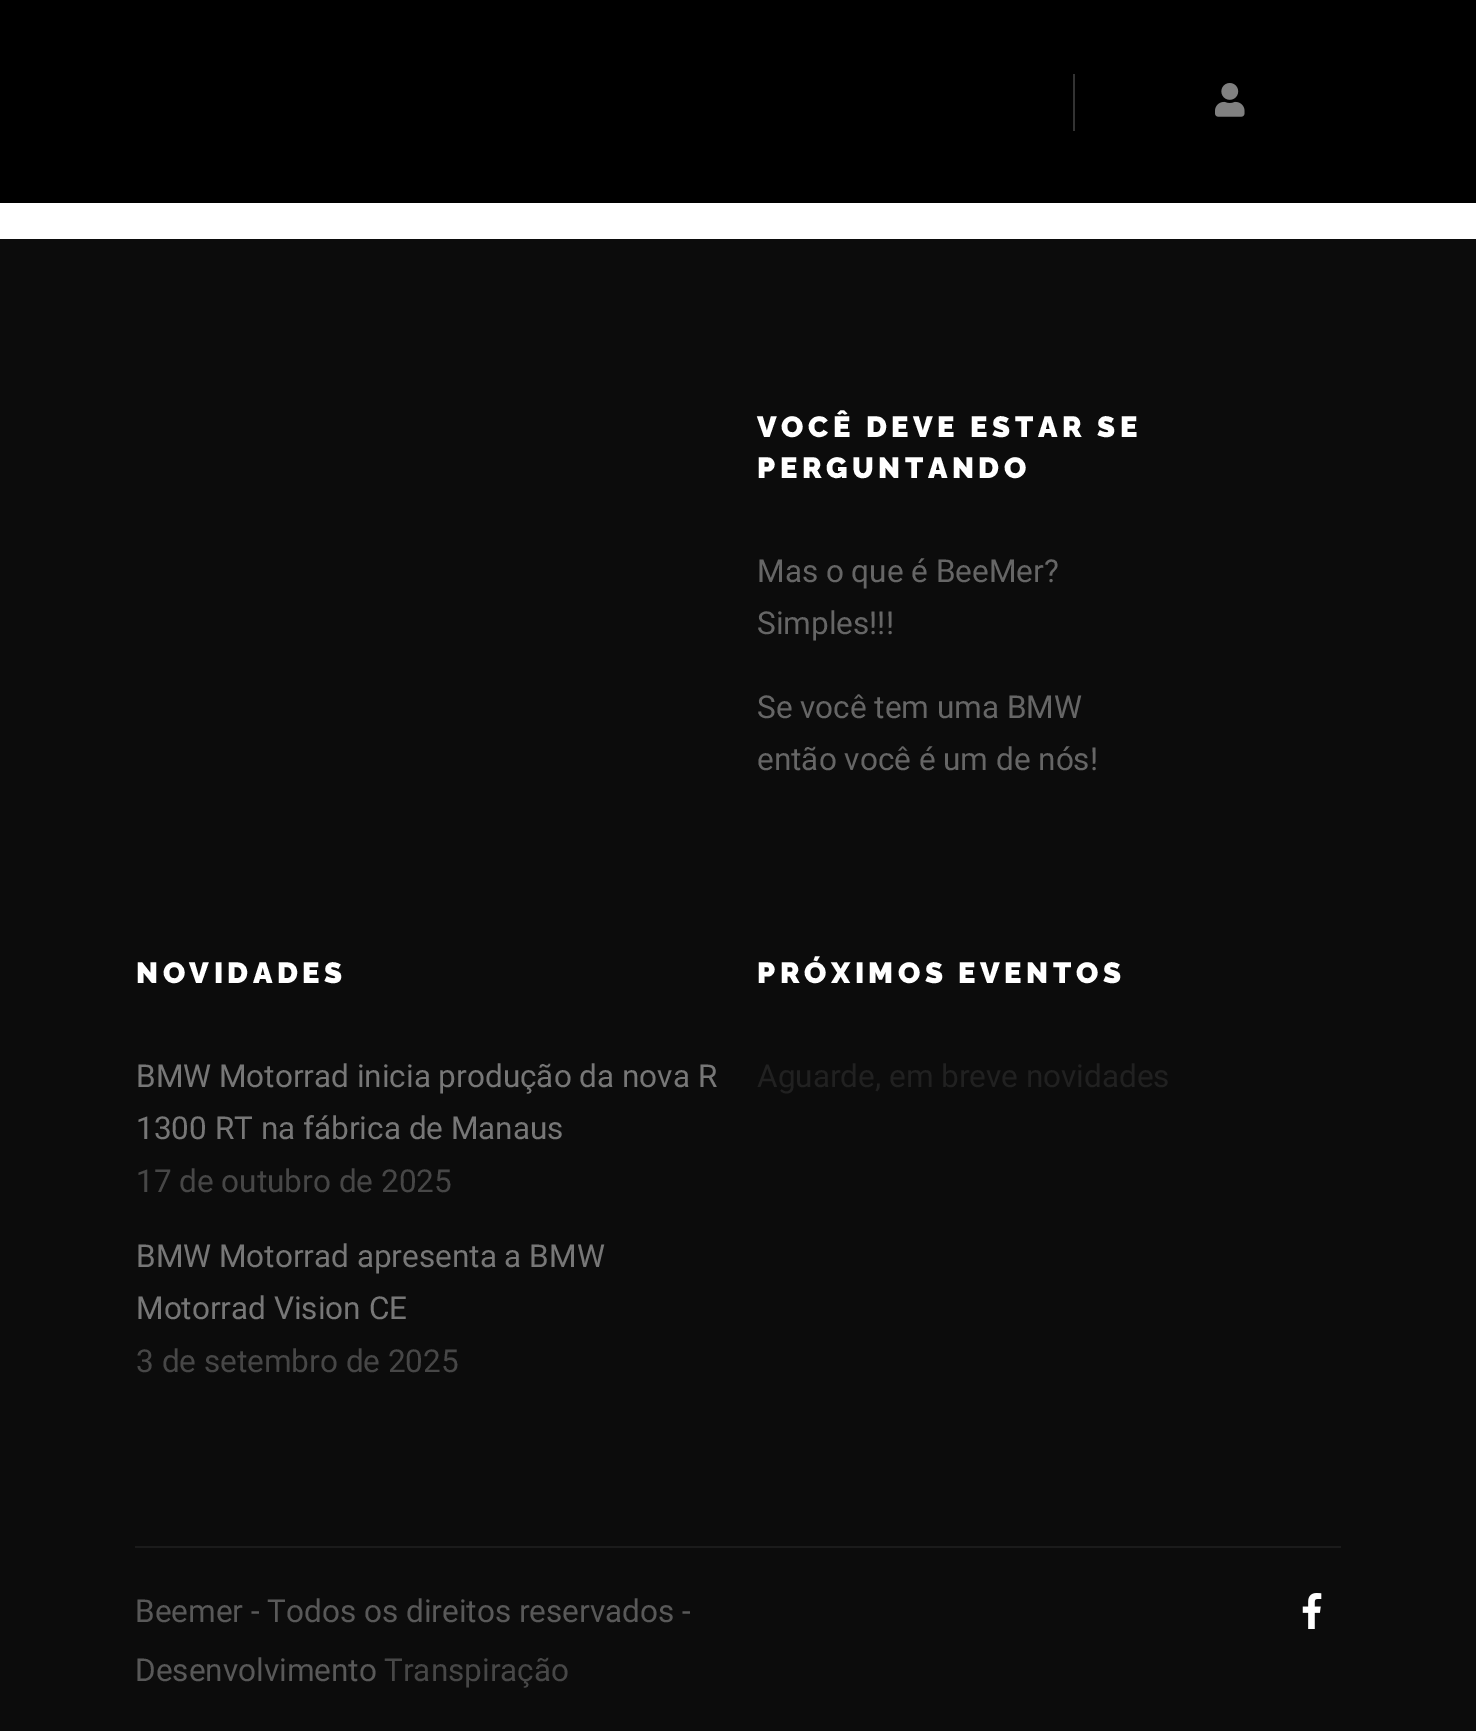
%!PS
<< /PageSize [1476 1731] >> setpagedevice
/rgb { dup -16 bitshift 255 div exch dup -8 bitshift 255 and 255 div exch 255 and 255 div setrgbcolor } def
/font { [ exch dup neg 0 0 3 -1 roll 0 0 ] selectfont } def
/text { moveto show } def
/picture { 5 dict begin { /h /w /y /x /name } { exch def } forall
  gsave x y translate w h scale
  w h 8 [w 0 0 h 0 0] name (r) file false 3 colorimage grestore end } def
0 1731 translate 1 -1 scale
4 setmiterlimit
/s1 { /Roboto-Regular 31.5 font 16#666666 rgb } def
/s2 { /Roboto-Regular 31.5 font 16#777777 rgb } def
/s3 { /Roboto-Regular 31.5 font 16#474747 rgb } def
/s4 { /Roboto-Regular 31.5 font 16#212121 rgb } def
/s5 { /Roboto-Regular 31.5 font 16#595959 rgb } def
16#FFFFFF rgb
0 0 1476 1731 rectfill
16#000000 rgb
0 0 1476 203 rectfill
16#333333 rgb
1073 74 2 57 rectfill
(pic1.raw) 1215 83 30 34 picture
16#0C0C0C rgb
0 239 1476 1492 rectfill
/Raleway-Black 29.25 font
16#FFFFFF rgb
757 437 moveto 4.5 0 (VOCÊ DEVE ESTAR SE) ashow
757 478 moveto 4.5 0 (PERGUNTANDO) ashow
s1
(Mas o que é BeeMer?) 757 582 text
(Simples!!!) 757 634 text
(Se você tem uma BMW) 757 718 text
(então você é um de nós!) 757 770 text
/Raleway-Black 29.25 font
16#FFFFFF rgb
136 983 moveto 4.5 0 (NOVIDADES) ashow
s2
(BMW Motorrad inicia produção da nova R) 136 1087 text
(1300 RT na fábrica de Manaus) 136 1139 text
s3
(17 de outubro de 2025) 136 1192 text
s2
(BMW Motorrad apresenta a BMW) 136 1267 text
(Motorrad Vision CE) 136 1319 text
s3
(3 de setembro de 2025) 136 1372 text
/Raleway-Black 29.25 font
16#FFFFFF rgb
757 983 moveto 4.5 0 (PRÓXIMOS EVENTOS) ashow
s4
(Aguarde, em breve novidades) 757 1087 text
16#1B1B1B rgb
135 1546 1206 2 rectfill
s5
(Beemer - Todos os direitos reservados -) 135 1622 text
(Desenvolvimento) 135 1681 text
s3
(Transpiração) 384 1681 text
(pic2.raw) 1302 1593 20 36 picture
showpage
